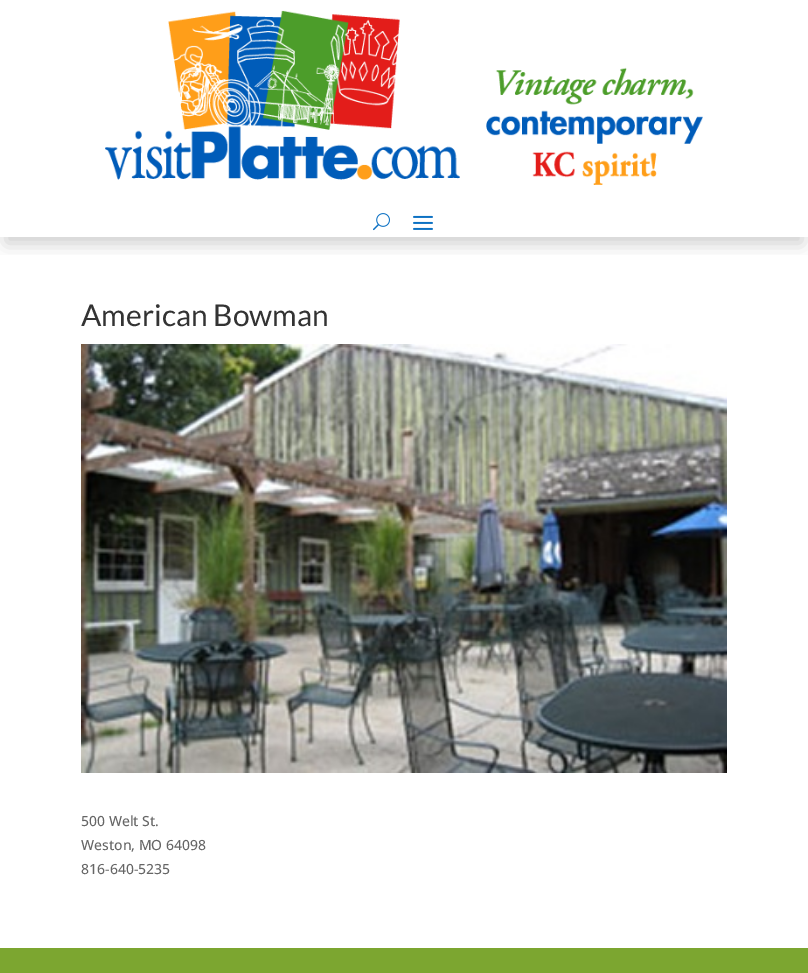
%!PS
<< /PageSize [808 973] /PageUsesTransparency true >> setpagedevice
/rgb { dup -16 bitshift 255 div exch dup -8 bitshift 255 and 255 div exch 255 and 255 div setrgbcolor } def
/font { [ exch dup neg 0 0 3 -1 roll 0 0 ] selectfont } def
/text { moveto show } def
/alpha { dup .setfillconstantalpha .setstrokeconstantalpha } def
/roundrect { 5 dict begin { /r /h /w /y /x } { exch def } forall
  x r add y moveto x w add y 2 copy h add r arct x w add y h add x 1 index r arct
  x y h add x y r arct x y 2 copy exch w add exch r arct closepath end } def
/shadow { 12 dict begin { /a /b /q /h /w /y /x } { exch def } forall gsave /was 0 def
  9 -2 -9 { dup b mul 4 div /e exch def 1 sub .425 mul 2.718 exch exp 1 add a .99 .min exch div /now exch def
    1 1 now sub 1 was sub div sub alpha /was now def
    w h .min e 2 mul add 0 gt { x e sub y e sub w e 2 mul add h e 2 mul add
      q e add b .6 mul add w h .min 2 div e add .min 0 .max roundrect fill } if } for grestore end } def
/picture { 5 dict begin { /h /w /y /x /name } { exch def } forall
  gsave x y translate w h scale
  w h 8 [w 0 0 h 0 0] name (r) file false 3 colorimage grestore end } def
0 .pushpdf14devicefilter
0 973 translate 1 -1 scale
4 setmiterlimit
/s1 { /Lato-Regular 30 font 16#333333 rgb } def
/s2 { /OpenSans-Medium 14 font 16#666666 rgb } def
16#FFFFFF rgb
0 0 808 973 rectfill
gsave
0 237 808 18 rectclip
16#000000 rgb
6 18 796 225 0 9 0.2 shadow
grestore
(pic1.raw) 105 10 598 175 picture
(pic2.raw) 373 213 17 18 picture
(pic3.raw) 413 215 20 15 picture
s1
(American Bowman) 81 326 text
(pic4.raw) 81 344 646 429 picture
s2
(500 Welt St.) 81 826 text
(Weston, MO 64098) 81 850 text
(816-640-5235) 81 874 text
16#7CA630 rgb
0 948 808 25 rectfill
.poppdf14devicefilter showpage
